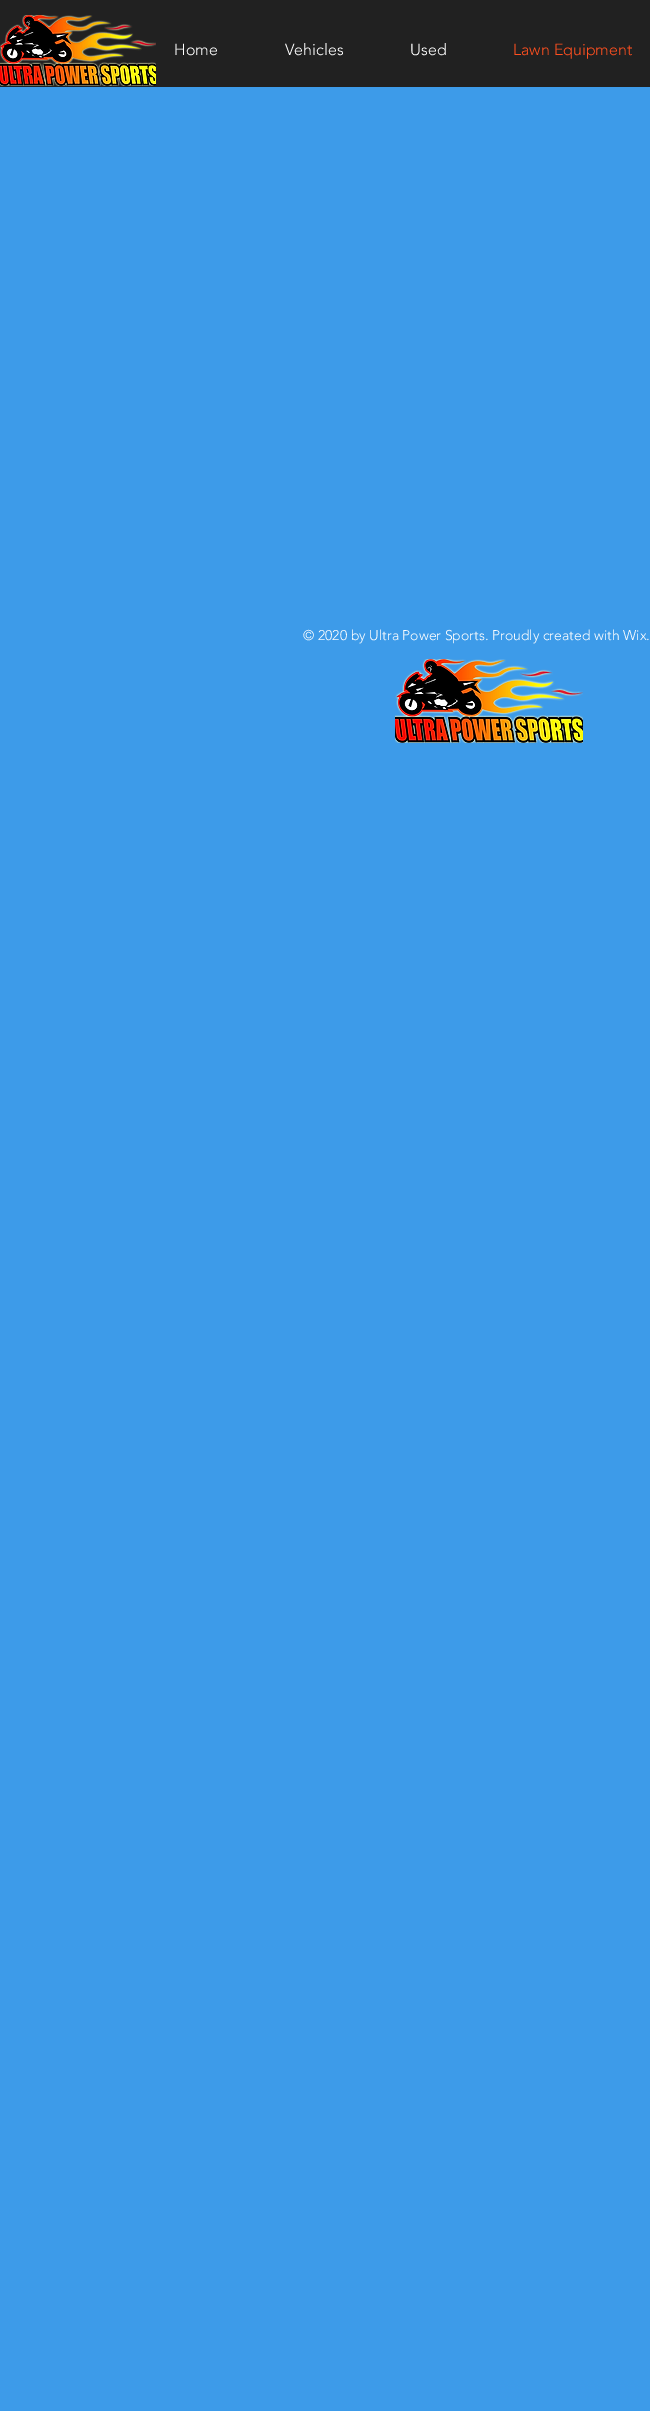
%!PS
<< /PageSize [650 2411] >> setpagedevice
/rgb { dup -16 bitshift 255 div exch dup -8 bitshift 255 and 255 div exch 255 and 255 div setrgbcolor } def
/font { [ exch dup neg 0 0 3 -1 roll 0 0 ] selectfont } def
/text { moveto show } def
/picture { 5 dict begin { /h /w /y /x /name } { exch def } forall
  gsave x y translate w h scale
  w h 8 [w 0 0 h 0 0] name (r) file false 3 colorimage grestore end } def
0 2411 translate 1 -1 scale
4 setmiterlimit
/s1 { /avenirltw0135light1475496-Light 16 font 16#FFFFFF rgb } def
/s2 { /avenirltw0135light1475496-Light 16 font 16#FF5020 rgb } def
/s3 { /avenirltw0135light1475496-Light 14 font 16#FFFFFF rgb } def
16#3D9BE9 rgb
0 0 650 2411 rectfill
16#212121 rgb
0 0 650 87 rectfill
(pic1.raw) 0 15 156 71 picture
s1
(Home) 174 55 text
(Vehicles) 285 55 text
(Used) 410 55 text
s2
(Lawn Equipment) 513 55 text
s3
(© 2020 by Ultra Power Sports. Proudly created with Wix.) 303 640 text
(pic2.raw) 395 659 188 84 picture
showpage
